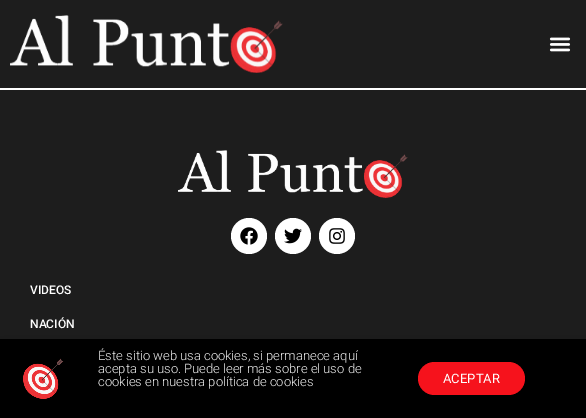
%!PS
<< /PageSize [586 418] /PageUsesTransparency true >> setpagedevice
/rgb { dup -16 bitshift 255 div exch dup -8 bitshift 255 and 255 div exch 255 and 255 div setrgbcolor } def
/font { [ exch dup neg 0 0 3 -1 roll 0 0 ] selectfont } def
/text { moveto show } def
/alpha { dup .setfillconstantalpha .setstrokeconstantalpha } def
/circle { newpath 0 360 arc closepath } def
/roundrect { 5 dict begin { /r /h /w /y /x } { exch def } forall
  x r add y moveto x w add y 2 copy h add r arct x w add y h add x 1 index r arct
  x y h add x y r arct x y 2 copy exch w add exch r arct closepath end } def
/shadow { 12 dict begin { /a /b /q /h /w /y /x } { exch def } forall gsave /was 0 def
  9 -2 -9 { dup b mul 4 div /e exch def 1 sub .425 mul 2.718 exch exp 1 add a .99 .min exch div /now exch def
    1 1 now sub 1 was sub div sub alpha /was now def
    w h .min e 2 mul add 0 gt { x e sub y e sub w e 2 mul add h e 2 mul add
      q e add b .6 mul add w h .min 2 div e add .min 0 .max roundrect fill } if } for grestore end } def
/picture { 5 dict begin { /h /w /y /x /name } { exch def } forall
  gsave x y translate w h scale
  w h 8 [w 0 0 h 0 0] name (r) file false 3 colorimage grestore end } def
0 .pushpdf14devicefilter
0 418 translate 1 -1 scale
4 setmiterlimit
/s1 { /Roboto-Medium 12 font 16#FFFFFF rgb } def
/s2 { /Roboto-Light 13 font 16#EFEFEF rgb } def
/s3 { /Roboto-Regular 13 font 16#FFFFFF rgb } def
16#FFFFFF rgb
0 0 586 418 rectfill
16#1D1D1D rgb
0 0 586 88 rectfill
(pic1.raw) 10 15 273 58 picture
(pic2.raw) 549 37 22 15 picture
0 90 586 249 rectfill
(pic3.raw) 178 150 230 48 picture
16#FFFFFF rgb
249 236 18 circle fill
(pic4.raw) 240 227 18 18 picture
293 236 18 circle fill
(pic5.raw) 284 228 18 16 picture
337 236 18 circle fill
(pic6.raw) 329 228 16 16 picture
s1
(VIDEOS) 30 294 text
(NACIÓN) 30 328 text
16#000000 rgb
-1 344 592 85 0 11.5 0.2 shadow
0 339 586 79 rectfill
(pic7.raw) 23 358 41 41 picture
s2
(Éste sitio web usa cookies, si permanece aquí) 98 360 text
(acepta su uso. Puede leer más sobre el uso de) 98 373 text
(cookies en nuestra política de cookies) 98 386 text
16#F6121C rgb
418 362 107 33 16.5 roundrect fill
s3
(ACEPTAR) 443 383 text
.poppdf14devicefilter showpage
